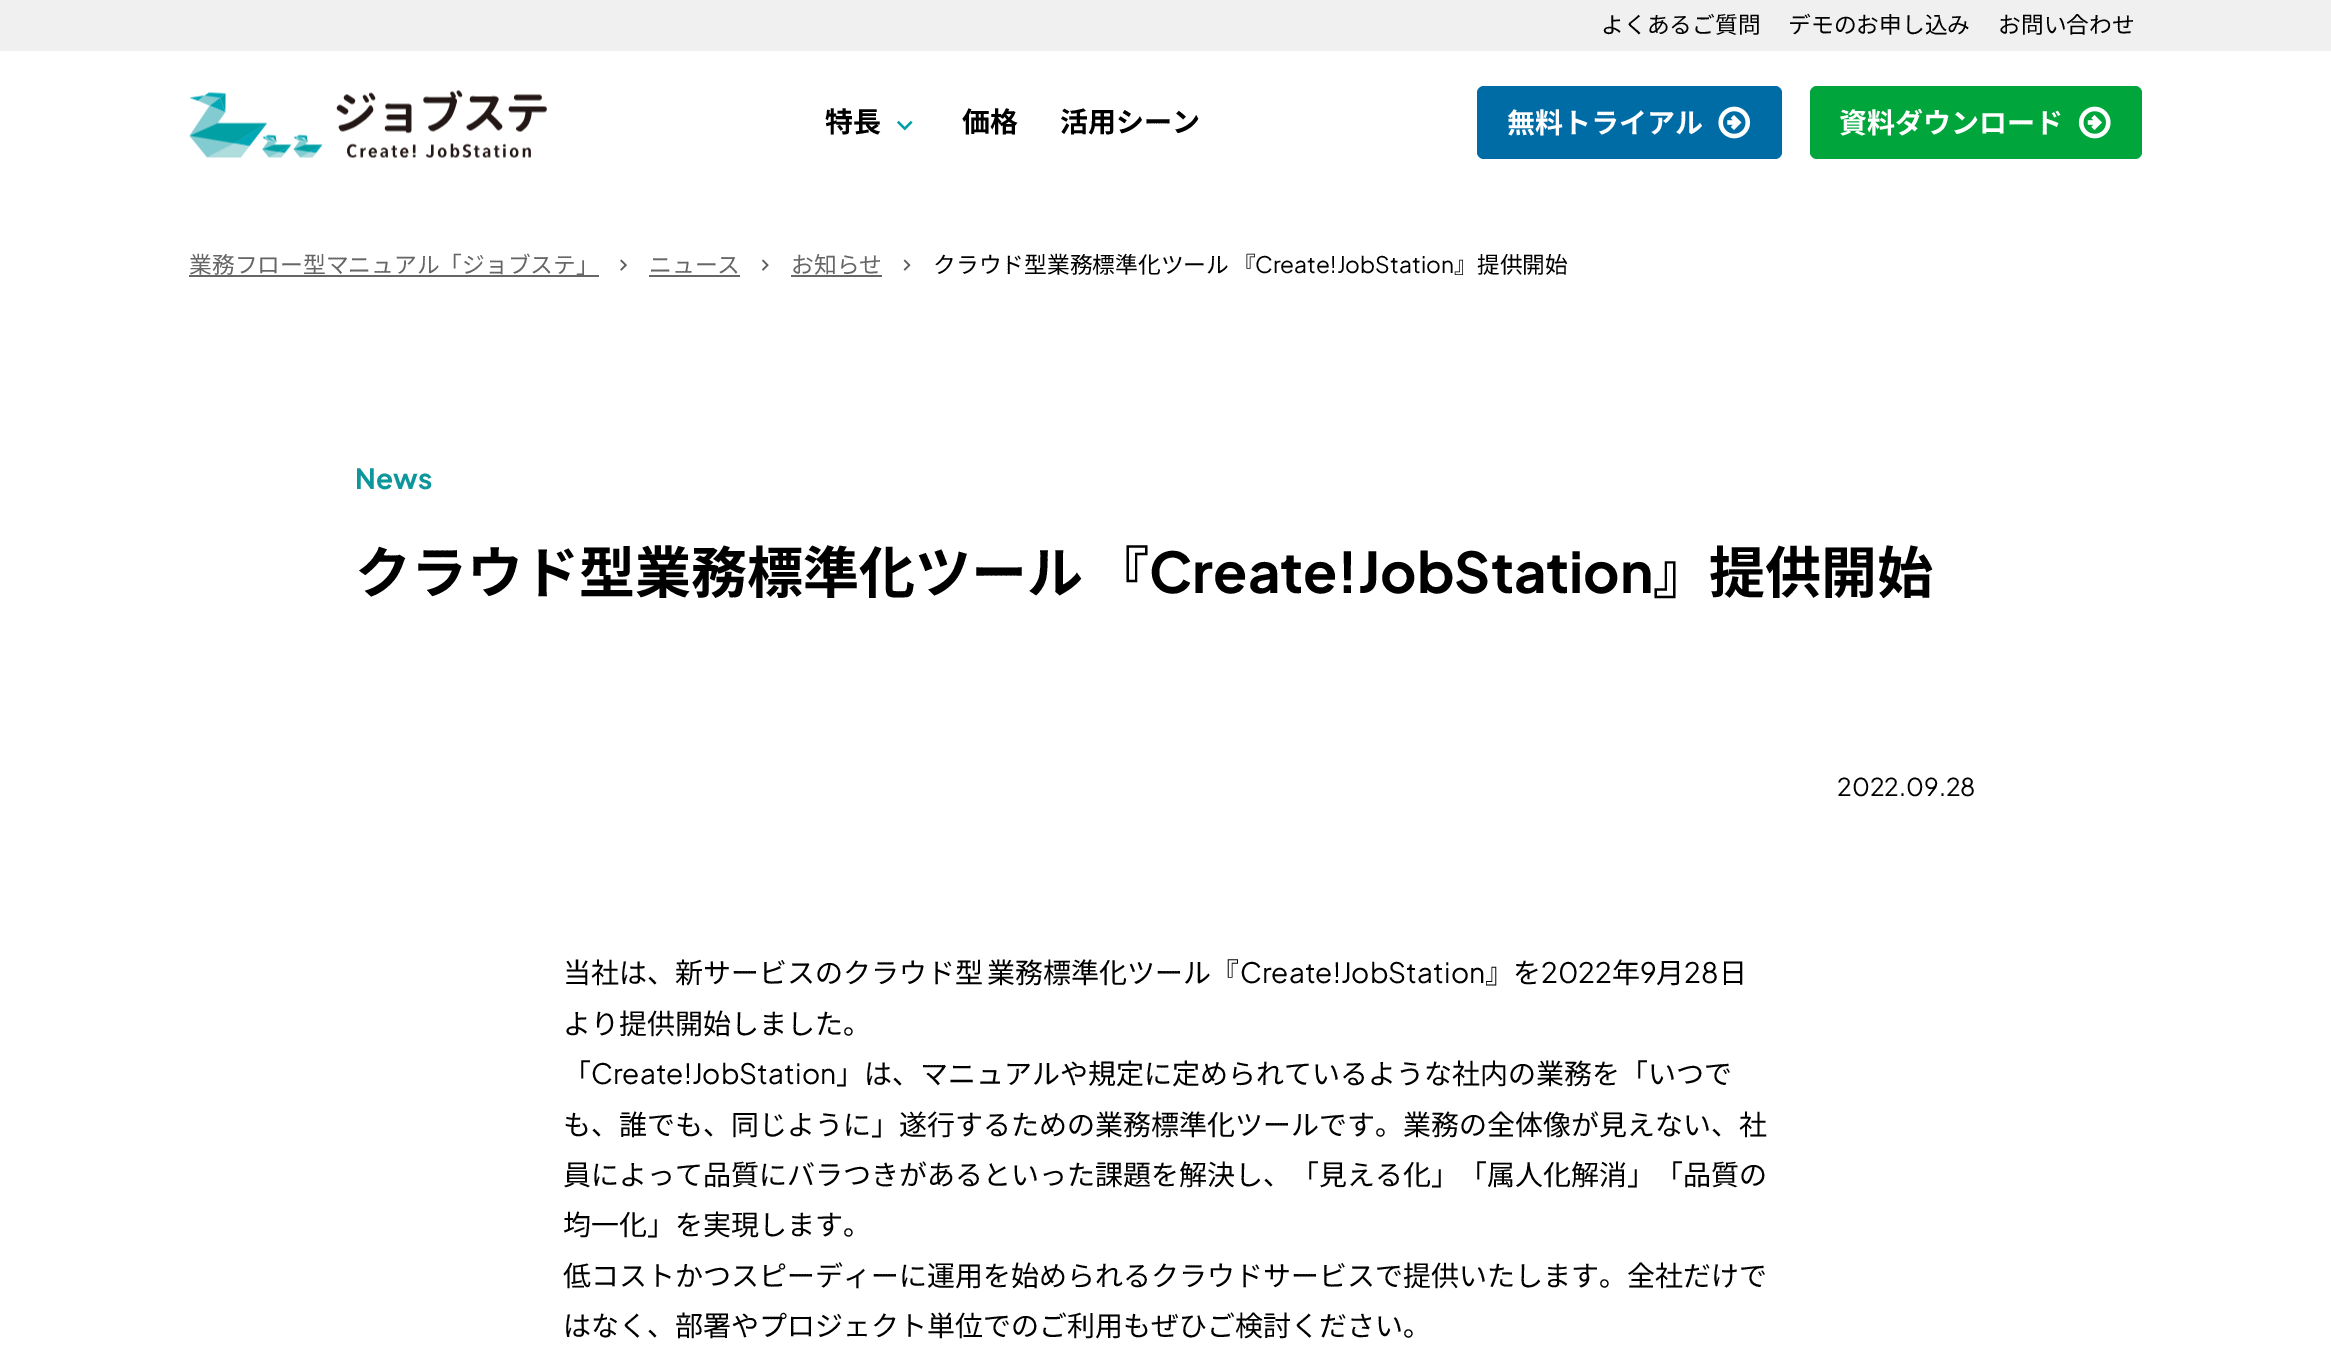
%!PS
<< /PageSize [2331 1351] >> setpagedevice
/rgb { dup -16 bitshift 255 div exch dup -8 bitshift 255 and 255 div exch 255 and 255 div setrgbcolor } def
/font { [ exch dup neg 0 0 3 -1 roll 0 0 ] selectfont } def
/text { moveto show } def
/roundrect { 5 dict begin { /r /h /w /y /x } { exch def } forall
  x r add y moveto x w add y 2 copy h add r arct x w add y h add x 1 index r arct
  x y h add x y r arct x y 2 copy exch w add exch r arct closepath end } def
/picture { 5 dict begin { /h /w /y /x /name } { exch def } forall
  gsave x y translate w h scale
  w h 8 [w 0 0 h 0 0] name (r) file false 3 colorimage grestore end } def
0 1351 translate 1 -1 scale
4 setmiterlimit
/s1 { /NotoSansJP-Regular 22.75 font 16#000000 rgb } def
/s2 { /NotoSansJP-Bold 28 font 16#000000 rgb } def
/s3 { /NotoSansJP-Bold 28 font 16#FFFFFF rgb } def
/s4 { /NotoSansJP-Regular 22.75 font 16#666666 rgb } def
/s5 { /PlusJakartaSans-Regular 22.75 font 16#000000 rgb } def
/s6 { /PlusJakartaSans-Bold 28 font 16#0D969B rgb } def
/s7 { /PlusJakartaSans-Bold 56 font 16#000000 rgb } def
/s8 { /NotoSansJP-Bold 56 font 16#000000 rgb } def
/s9 { /PlusJakartaSans-Regular 24.5 font 16#000000 rgb } def
/s10 { /PlusJakartaSans-Regular 28 font 16#000000 rgb } def
/s11 { /NotoSansJP-Regular 28 font 16#000000 rgb } def
16#FFFFFF rgb
0 0 2331 1351 rectfill
16#F0F0F0 rgb
0 0 2331 51 rectfill
s1
(よくあるご質問) 1601 33 text
(デモのお申し込み) 1788 33 text
(お問い合わせ) 1998 33 text
(pic1.raw) 189 90 358 68 picture
s2
(特長) 825 132 text
(pic2.raw) 897 120 16 11 picture
(価格) 962 132 text
(活用シーン) 1060 132 text
16#006CA6 rgb
1477 86 305 73 7 roundrect fill
s3
(無料トライアル) 1507 133 text
(pic3.raw) 1718 106 33 33 picture
16#00A63B rgb
1810 86 332 73 7 roundrect fill
s3
(資料ダウンロード) 1839 133 text
(pic4.raw) 2078 106 33 33 picture
s4
(業務フロー型マニュアル「ジョブステ」) 189 273 text
189 275 410 2 rectfill
(pic5.raw) 620 259 7 12 picture
(ニュース) 649 273 text
649 275 91 2 rectfill
(pic6.raw) 761 259 8 12 picture
(お知らせ) 791 273 text
791 275 91 2 rectfill
(pic7.raw) 903 259 8 12 picture
16#000000 rgb
933 273 moveto -1 0 32 (クラウド型業務標準化ツール 『) widthshow
s5
(Create!JobStation) 1255 273 text
s1
(』提供開始) 1454 273 text
s6
(News) 355 489 text
/NotoSansJP-Bold 56 font
16#000000 rgb
355 593 moveto -3 0 32 (クラウド型業務標準化ツール 『) widthshow
s7
(Create!JobStation) 1149 593 text
s8
(』提供開始) 1653 593 text
s9
(2022.09.28) 1837 796 text
/NotoSansJP-Regular 28 font
563 983 moveto -2 0 32 (当社は、新サービスのクラウド型 業務標準化ツール『) widthshow
s10
(Create!JobStation) 1240 983 text
s11
(』を) 1485 983 text
s10
(2022) 1541 983 text
s11
(年) 1612 983 text
s10
(9) 1640 983 text
s11
(月) 1656 983 text
s10
(28) 1684 983 text
s11
(日) 1719 983 text
(より提供開始しました。) 563 1034 text
(「) 563 1084 text
s10
(Create!JobStation) 591 1084 text
s11
(」は、マニュアルや規定に定められているような社内の業務を「いつで) 836 1084 text
(も、誰でも、同じように」遂行するための業務標準化ツールです。業務の全体像が見えない、社) 563 1135 text
(員によって品質にバラつきがあるといった課題を解決し、「見える化」「属人化解消」「品質の) 563 1185 text
(均一化」を実現します。) 563 1235 text
(低コストかつスピーディーに運用を始められるクラウドサービスで提供いたします。全社だけで) 563 1286 text
(はなく、部署やプロジェクト単位でのご利用もぜひご検討ください。) 563 1336 text
showpage
